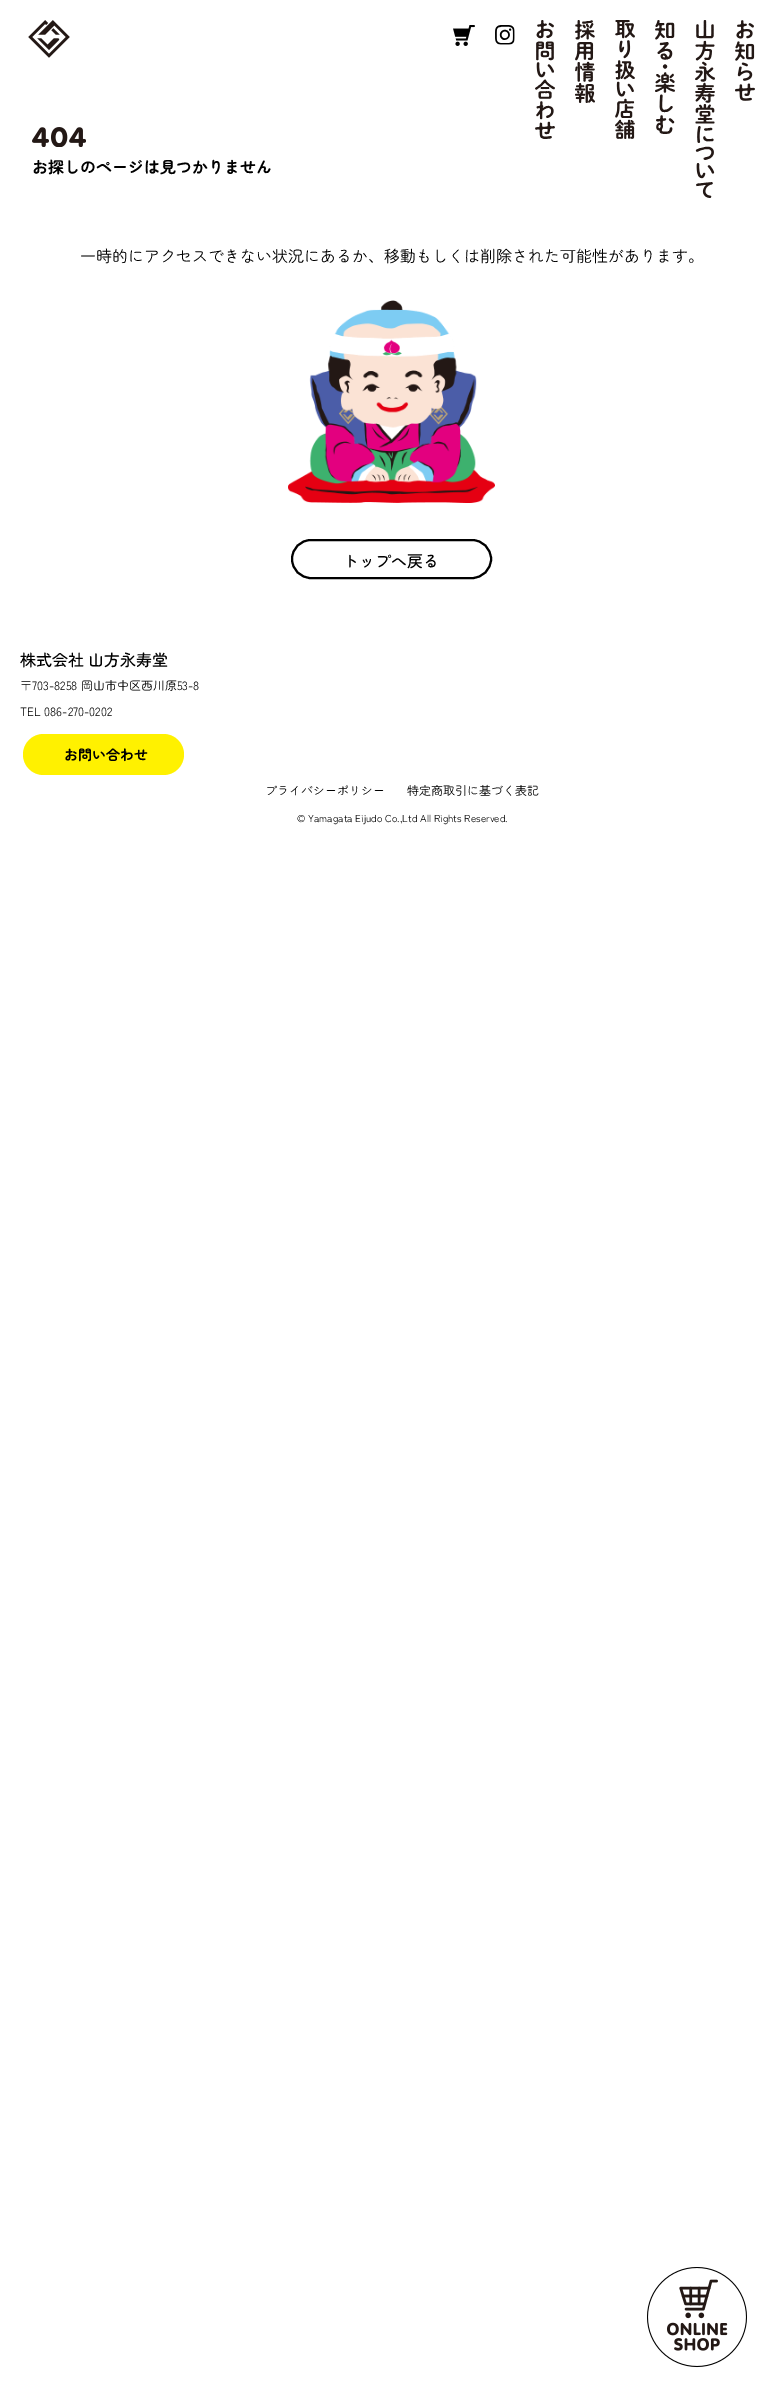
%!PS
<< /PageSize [783 2403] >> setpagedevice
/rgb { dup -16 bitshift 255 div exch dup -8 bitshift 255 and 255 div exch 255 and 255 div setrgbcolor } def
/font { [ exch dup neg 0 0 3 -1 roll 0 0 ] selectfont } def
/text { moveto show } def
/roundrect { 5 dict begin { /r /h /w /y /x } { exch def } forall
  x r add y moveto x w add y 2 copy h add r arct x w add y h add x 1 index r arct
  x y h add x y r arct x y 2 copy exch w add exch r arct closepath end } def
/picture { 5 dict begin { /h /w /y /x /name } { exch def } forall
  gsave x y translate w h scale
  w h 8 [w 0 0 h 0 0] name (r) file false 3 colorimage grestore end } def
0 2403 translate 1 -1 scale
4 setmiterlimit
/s1 { /ZenMaruGothic-Bold 16 font 16#000000 rgb } def
/s2 { /ZenMaruGothic-Regular 16 font 16#000000 rgb } def
/s3 { /ZenMaruGothic-Medium 16 font 16#000000 rgb } def
/s4 { /ZenMaruGothic-Regular 12 font 16#000000 rgb } def
/s5 { /ZenMaruGothic-Bold 14 font 16#000000 rgb } def
/s6 { /ZenMaruGothic-Regular 10 font 16#000000 rgb } def
16#FFFFFF rgb
0 0 783 2403 rectfill
(pic1.raw) 28 20 42 38 picture
(pic2.raw) 453 25 22 21 picture
(pic3.raw) 495 25 20 20 picture
(pic4.raw) 535 20 20 119 picture
(pic5.raw) 575 20 20 83 picture
(pic6.raw) 615 20 20 119 picture
(pic7.raw) 655 20 20 114 picture
(pic8.raw) 695 20 20 178 picture
(pic9.raw) 735 20 20 81 picture
(pic10.raw) 32 127 54 20 picture
s1
(お探しのページは見つかりません) 32 173 text
s2
(一時的にアクセスできない状況にあるか、移動もしくは削除された可能性があります。) 80 262 text
(pic11.raw) 288 300 207 203 picture
2 setlinewidth
292 540 199 38 19 roundrect stroke
s3
(トップへ戻る) 343 567 text
(株式会社 山方永寿堂) 20 666 text
s4
(〒703-8258 岡山市中区西川原53-8) 20 690 text
(TEL 086-270-0202) 20 716 text
16#FFF100 rgb
23 734 161 41 20.5 roundrect fill
s5
(お問い合わせ) 64 760 text
s4
(プライバシーポリシー) 265 795 text
(特定商取引に基づく表記) 407 795 text
s6
(© Yamagata Eijudo Co.,Ltd All Rights Reserved.) 297 822 text
(pic12.raw) 647 2267 100 101 picture
showpage
